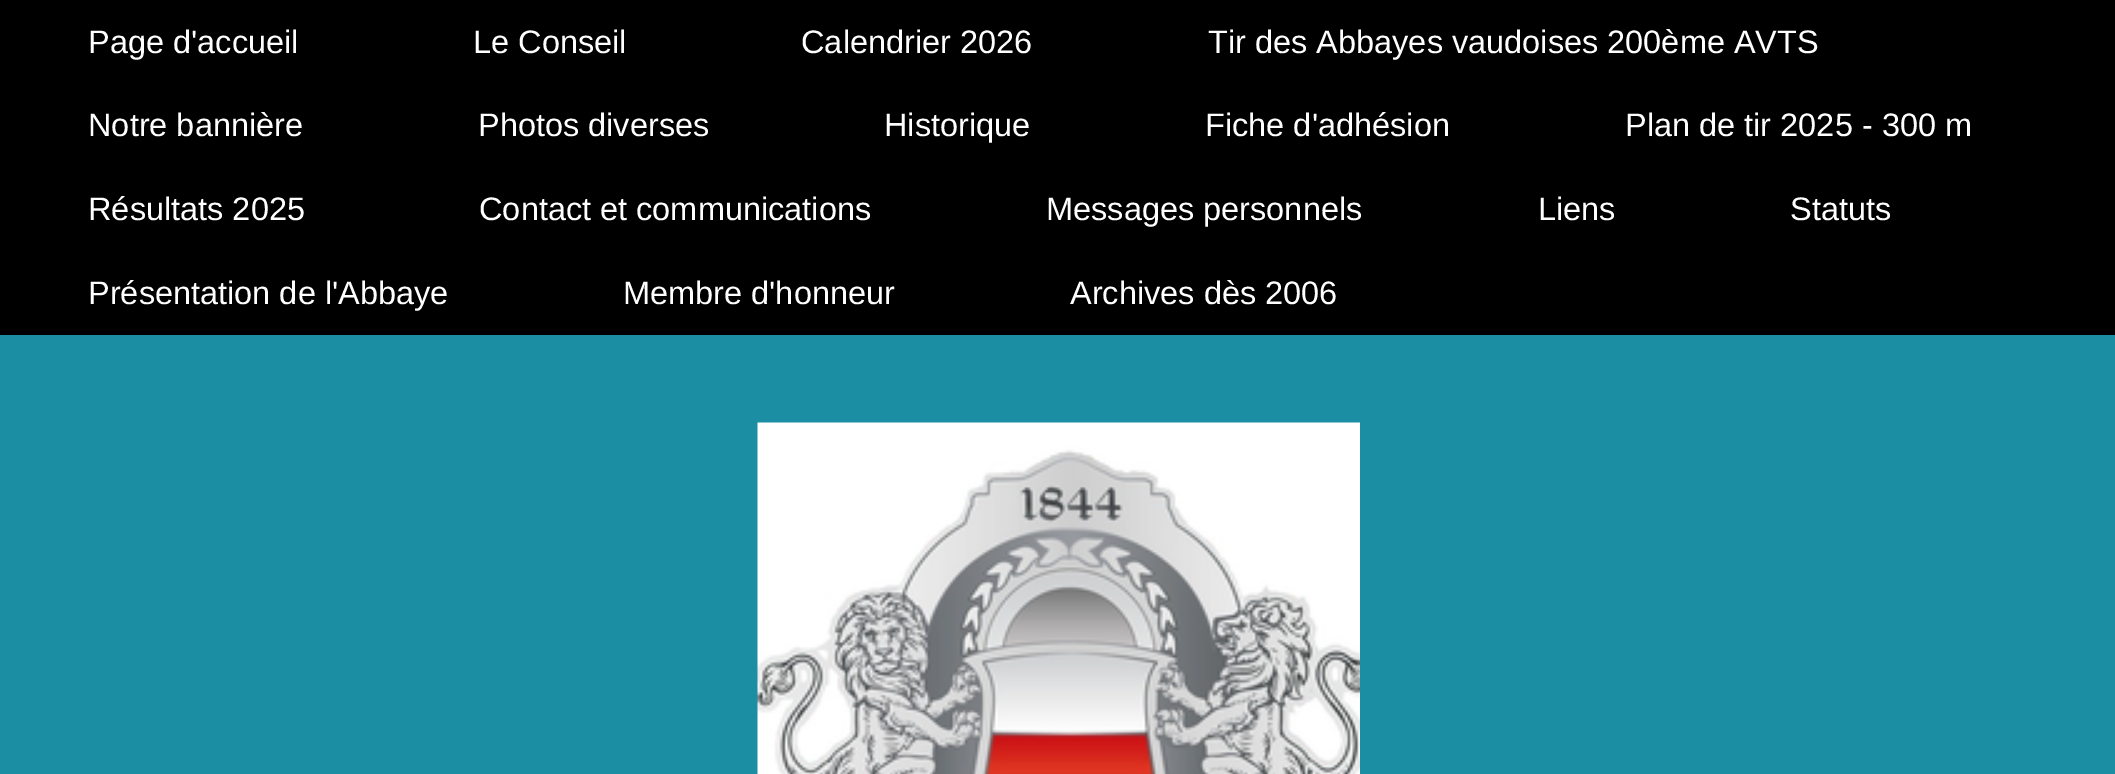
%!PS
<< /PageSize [2115 774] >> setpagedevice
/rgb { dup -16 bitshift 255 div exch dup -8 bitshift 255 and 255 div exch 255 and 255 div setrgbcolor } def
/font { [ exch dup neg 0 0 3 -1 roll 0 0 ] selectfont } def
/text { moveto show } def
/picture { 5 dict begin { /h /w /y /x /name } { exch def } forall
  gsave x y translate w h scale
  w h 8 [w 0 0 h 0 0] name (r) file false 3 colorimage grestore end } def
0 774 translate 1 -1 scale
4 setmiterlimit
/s1 { /LiberationSans-Regular 32.5 font 16#FFFFFF rgb } def
16#1C8EA3 rgb
0 0 2115 774 rectfill
16#000000 rgb
0 0 2115 335 rectfill
s1
(Page d'accueil) 88 53 text
(Le Conseil) 473 53 text
(Calendrier 2026) 801 53 text
(Tir des Abbayes vaudoises 200ème AVTS) 1208 53 text
(Notre bannière) 88 136 text
(Photos diverses) 478 136 text
(Historique) 884 136 text
(Fiche d'adhésion) 1205 136 text
(Plan de tir 2025 - 300 m) 1625 136 text
(Résultats 2025) 88 220 text
(Contact et communications) 479 220 text
(Messages personnels) 1046 220 text
(Liens) 1538 220 text
(Statuts) 1790 220 text
(Présentation de l'Abbaye) 88 304 text
(Membre d'honneur) 623 304 text
(Archives dès 2006) 1070 304 text
(pic1.raw) 757 422 603 352 picture
showpage
